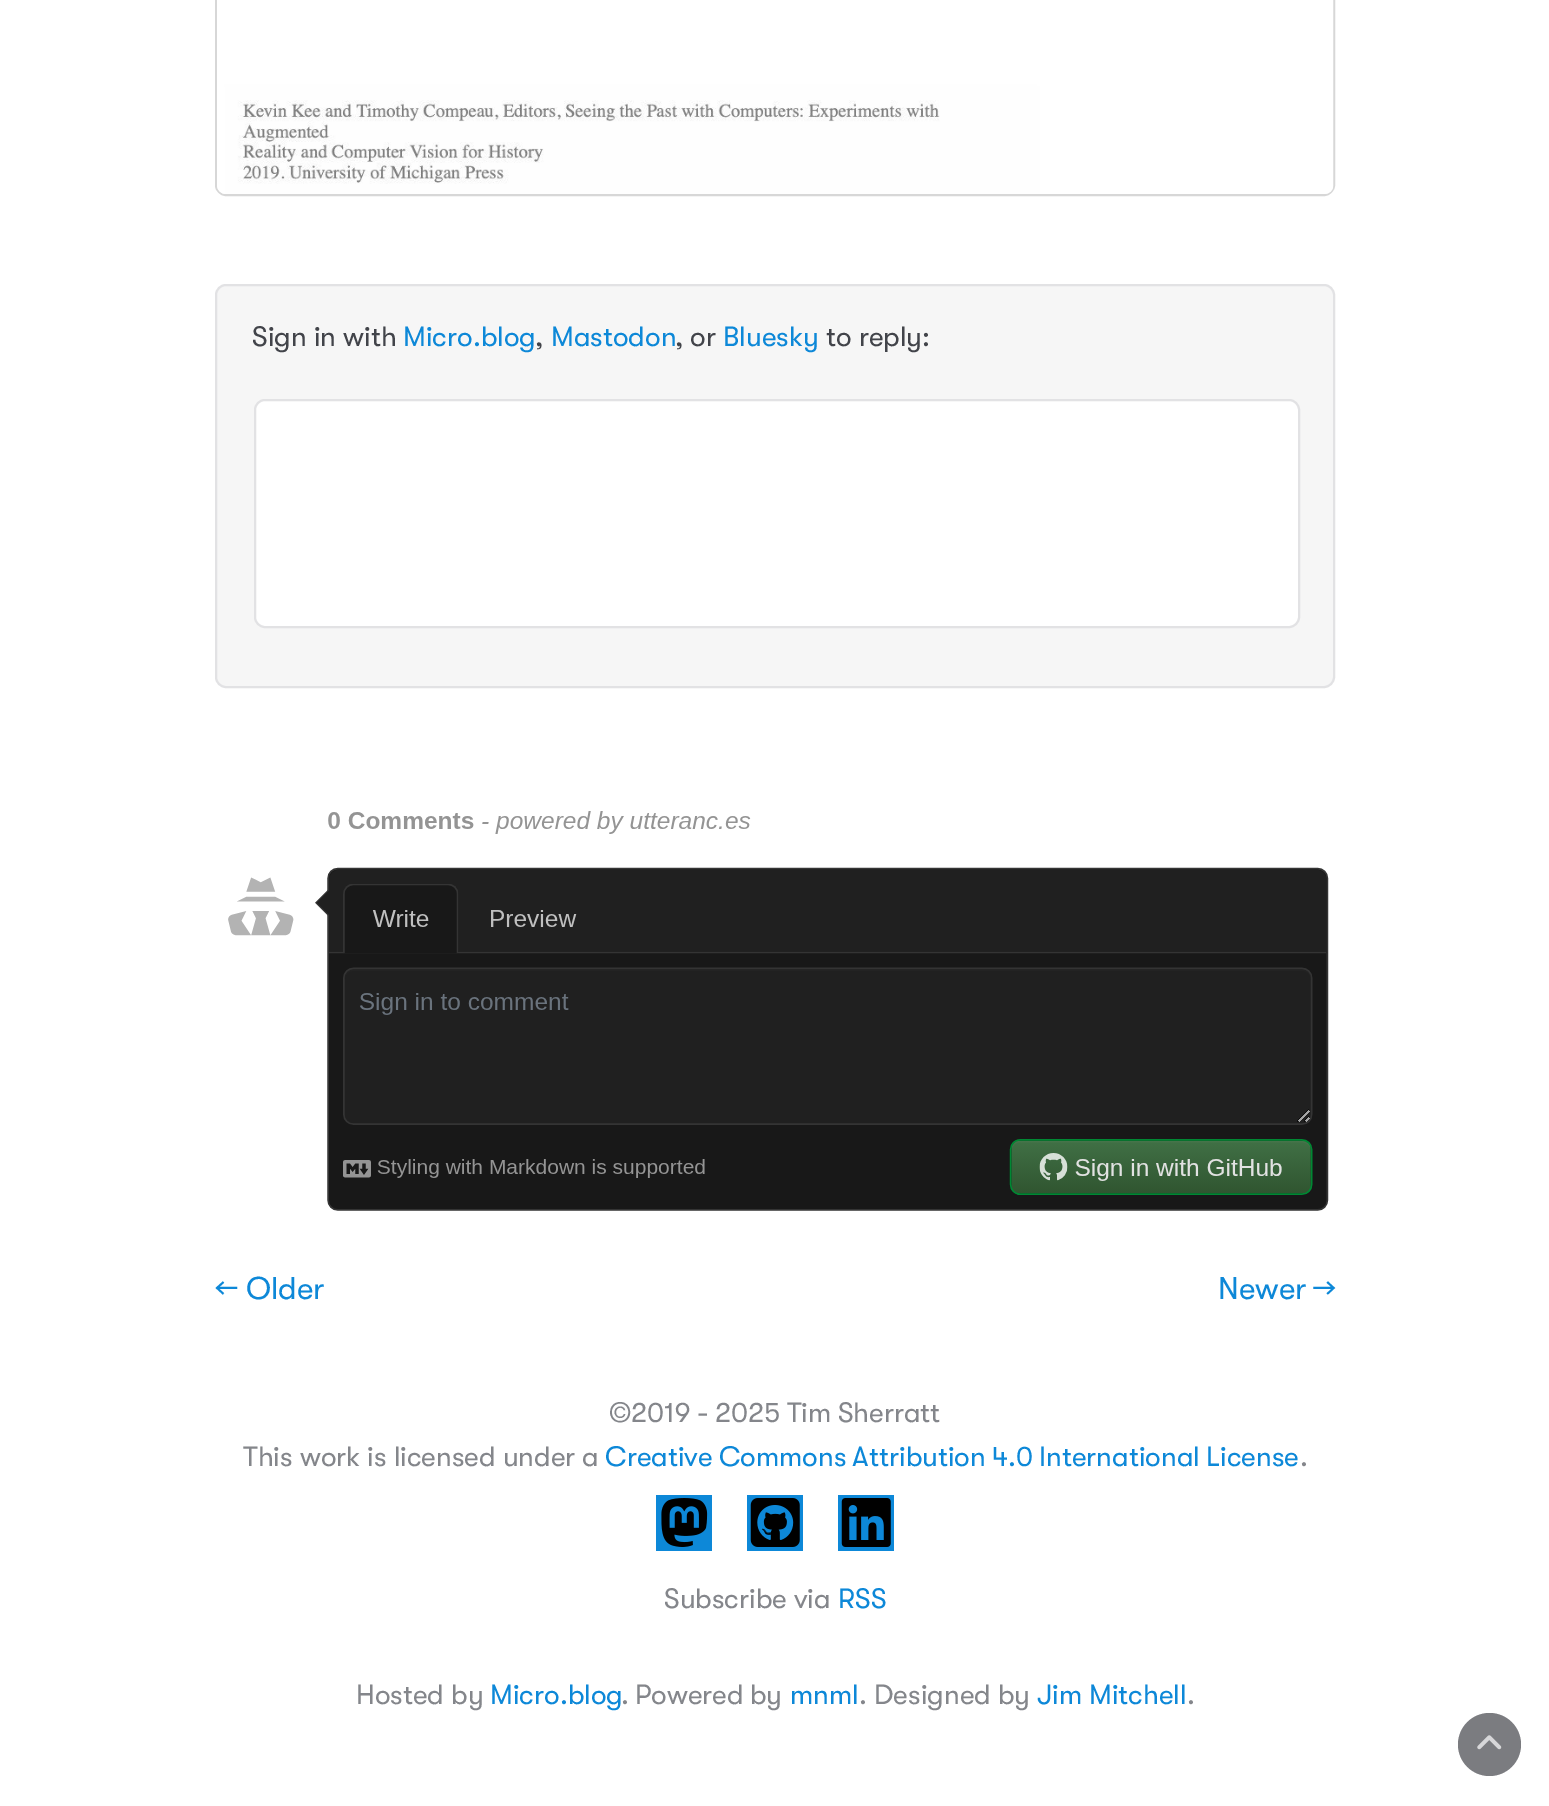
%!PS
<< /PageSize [1549 1806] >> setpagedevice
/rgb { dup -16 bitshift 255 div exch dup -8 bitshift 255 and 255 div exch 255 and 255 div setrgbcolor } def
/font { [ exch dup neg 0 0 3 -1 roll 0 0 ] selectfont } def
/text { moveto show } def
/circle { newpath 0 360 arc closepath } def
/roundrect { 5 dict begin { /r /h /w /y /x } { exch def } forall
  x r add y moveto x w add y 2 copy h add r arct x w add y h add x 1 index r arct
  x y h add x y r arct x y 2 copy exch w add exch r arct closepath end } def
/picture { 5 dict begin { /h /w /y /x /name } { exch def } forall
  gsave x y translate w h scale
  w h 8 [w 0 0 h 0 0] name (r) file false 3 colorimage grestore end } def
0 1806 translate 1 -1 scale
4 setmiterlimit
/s1 { /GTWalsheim-Regular 28 font 16#42444A rgb } def
/s2 { /GTWalsheim-Regular 28 font 16#0D88D8 rgb } def
/s3 { /GTWalsheim-Regular 31.5 font 16#0D88D8 rgb } def
/s4 { /GTWalsheim-Regular 28 font 16#84868B rgb } def
16#FFFFFF rgb
0 0 1549 1806 rectfill
16#D7D7D7 rgb
2 setlinewidth
216 -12 1118 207 10 roundrect stroke
(pic1.raw) 217 0 1117 194 picture
16#F6F6F6 rgb
216 285 1118 402 10 roundrect gsave fill grestore
16#E2E2E4 rgb
stroke
s1
(Sign in with) 252 346 text
s2
(Micro.blog) 403 346 text
s1
(,) 535 346 text
s2
(Mastodon) 551 346 text
s1
(, or) 675 346 text
s2
(Bluesky) 723 346 text
s1
(to reply:) 826 346 text
16#FFFFFF rgb
255 400 1044 227 10 roundrect gsave fill grestore
16#E2E2E4 rgb
stroke
(pic2.raw) 228 811 1101 400 picture
s3
(← Older) 215 1299 text
1218 1299 moveto -1 0 32 (Newer →) widthshow
/GTWalsheim-Regular 28 font
16#84868B rgb
609 1422 moveto -0.5 0 32 (©2019 - 2025 Tim Sherratt) widthshow
(This work is licensed under a) 243 1466 text
16#0D88D8 rgb
605 1466 moveto -1 0 32 (Creative Commons Attribution 4.0 International License) widthshow
s4
(.) 1300 1466 text
16#0D88D8 rgb
656 1495 56 56 rectfill
747 1495 56 56 rectfill
838 1495 56 56 rectfill
(pic3.raw) 661 1498 47 49 picture
(pic4.raw) 750 1498 50 49 picture
(pic5.raw) 841 1498 50 49 picture
s4
(Subscribe via) 664 1608 text
s2
(RSS) 838 1608 text
s4
(Hosted by) 356 1704 text
s2
(Micro.blog) 490 1704 text
16#84868B rgb
621 1704 moveto -1 0 32 (. Powered by) widthshow
s2
(mnml) 790 1704 text
s4
(. Designed by) 859 1704 text
s2
(Jim Mitchell) 1037 1704 text
s4
(.) 1187 1704 text
16#7B7C80 rgb
1489.5 1744.5 31.5 circle fill
(pic6.raw) 1477 1735 25 15 picture
showpage
